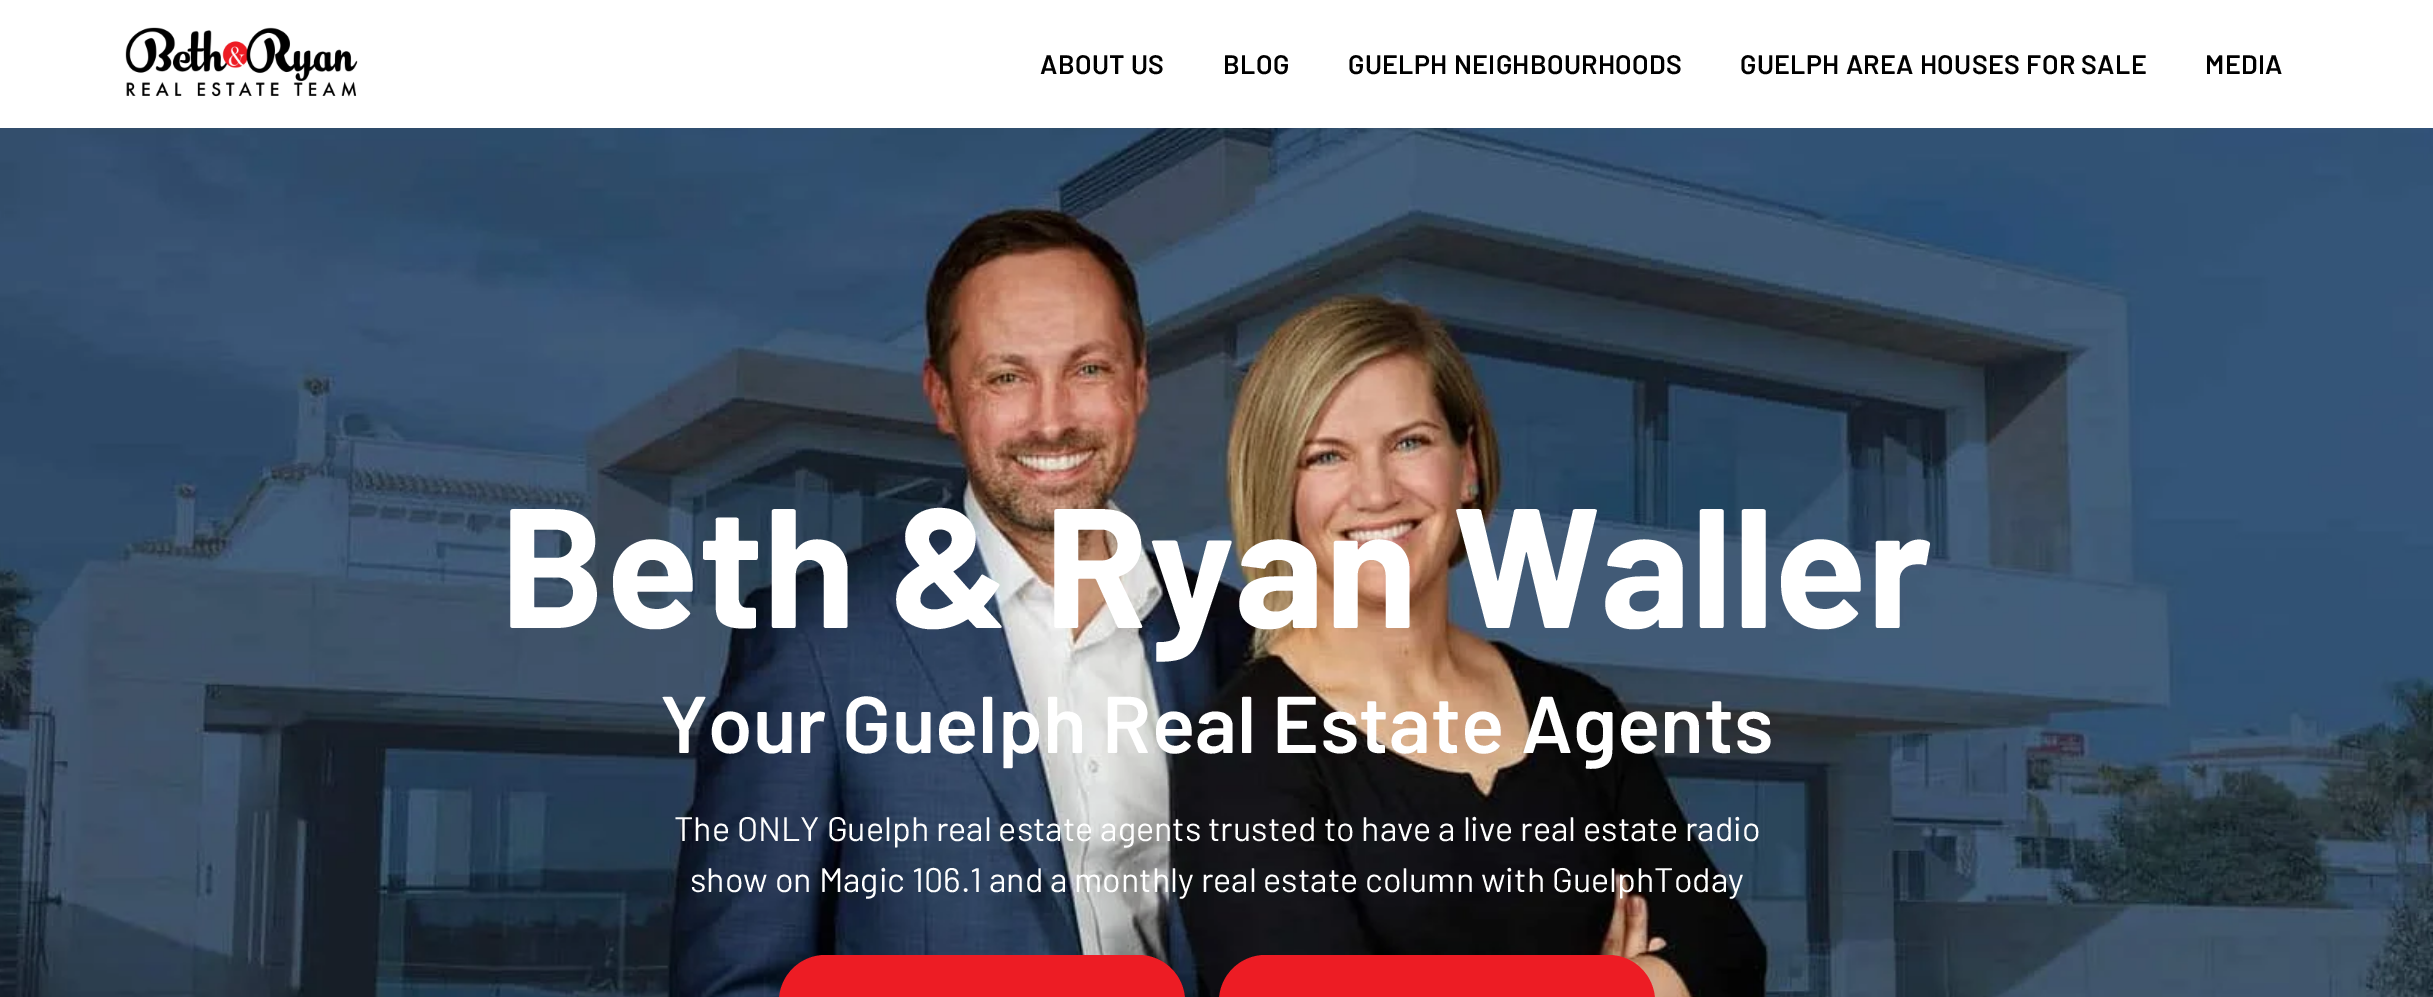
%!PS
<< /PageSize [2433 997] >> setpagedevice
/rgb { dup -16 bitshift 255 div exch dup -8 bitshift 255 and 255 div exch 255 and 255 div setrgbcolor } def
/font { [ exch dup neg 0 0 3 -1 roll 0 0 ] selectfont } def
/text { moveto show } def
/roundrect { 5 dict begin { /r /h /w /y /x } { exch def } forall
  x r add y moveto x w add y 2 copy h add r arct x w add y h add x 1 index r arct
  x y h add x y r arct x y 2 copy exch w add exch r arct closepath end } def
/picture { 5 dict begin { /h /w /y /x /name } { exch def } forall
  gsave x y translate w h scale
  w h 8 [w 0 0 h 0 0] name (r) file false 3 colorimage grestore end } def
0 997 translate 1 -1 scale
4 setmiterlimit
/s1 { /Barlow-Bold 170.25 font 16#FFFFFF rgb } def
/s2 { /Barlow-SemiBold 80.25 font 16#FFFFFF rgb } def
/s3 { /Barlow-Regular 34.1 font 16#FFFFFF rgb } def
16#FFFFFF rgb
0 0 2433 997 rectfill
(pic1.raw) 125 27 233 70 picture
/Barlow-SemiBold 26.75 font
16#000000 rgb
1040 74 moveto 0.4 0 (ABOUT US) ashow
1223 74 moveto 0.4 0 (BLOG) ashow
1348 74 moveto 0.4 0 (GUELPH NEIGHBOURHOODS) ashow
1740 74 moveto 0.4 0 (GUELPH AREA HOUSES FOR SALE) ashow
2205 74 moveto 0.4 0 (MEDIA) ashow
(pic2.raw) 0 128 2433 869 picture
s1
(Beth & Ryan Waller) 500 628 text
s2
(Your Guelph Real Estate Agents) 660 753 text
s3
(The ONLY Guelph real estate agents trusted to have a live real estate radio) 674 841 text
(show on Magic 106.1 and a monthly real estate column with GuelphToday) 690 892 text
16#ED1C24 rgb
779 955 406 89 46.5 roundrect fill
1219 955 436 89 46.5 roundrect fill
showpage
